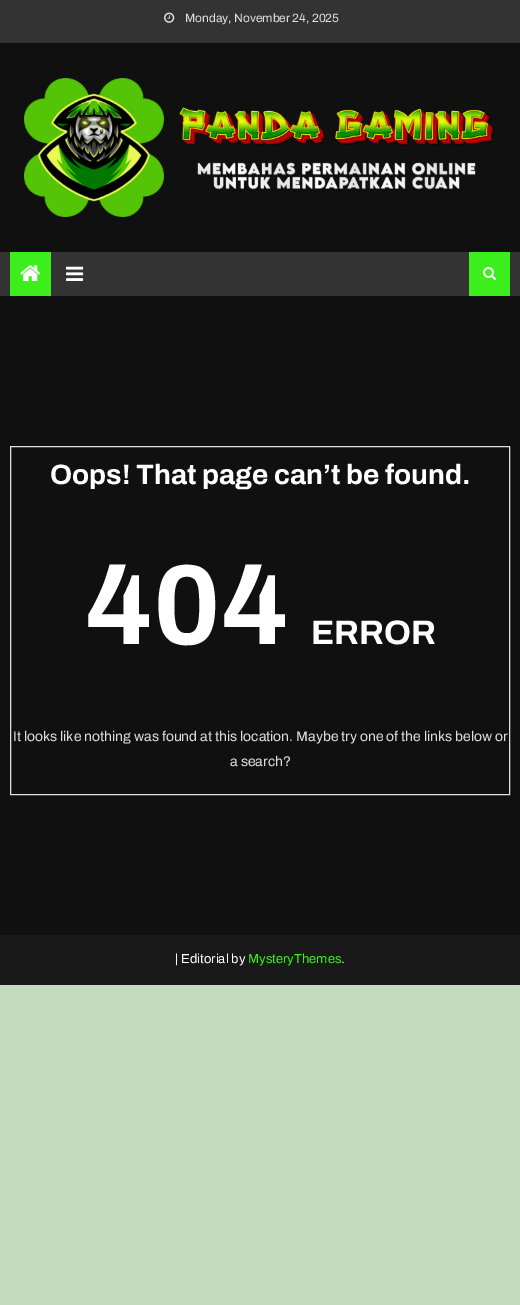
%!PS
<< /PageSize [520 1305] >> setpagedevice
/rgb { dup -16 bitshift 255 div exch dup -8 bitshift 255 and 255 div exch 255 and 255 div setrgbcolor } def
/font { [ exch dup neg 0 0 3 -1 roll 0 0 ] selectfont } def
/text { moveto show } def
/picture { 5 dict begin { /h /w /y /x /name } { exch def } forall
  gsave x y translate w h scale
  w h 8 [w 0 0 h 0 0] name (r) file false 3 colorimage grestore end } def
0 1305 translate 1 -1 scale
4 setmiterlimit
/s1 { /Archivo-Regular 12 font 16#DFDFDF rgb } def
/s2 { /Archivo-Bold 28 font 16#FFFFFF rgb } def
/s3 { /Archivo-Bold 114 font 16#FFFFFF rgb } def
/s4 { /Archivo-Bold 34 font 16#FFFFFF rgb } def
/s5 { /Archivo-Regular 14 font 16#DFDFDF rgb } def
/s6 { /Archivo-Regular 13 font 16#FFFFFF rgb } def
/s7 { /Archivo-Regular 13 font 16#3CEF1C rgb } def
16#C3DBBC rgb
0 0 520 1305 rectfill
16#101010 rgb
0 43 520 892 rectfill
16#333333 rgb
0 0 520 43 rectfill
(pic1.raw) 164 12 11 11 picture
s1
(Monday, November 24, 2025) 185 22 text
(pic2.raw) 24 78 470 139 picture
16#333333 rgb
0 252 520 44 rectfill
16#3CEF1C rgb
10 252 41 44 rectfill
(pic3.raw) 20 265 21 16 picture
(pic4.raw) 66 266 18 15 picture
469 252 41 44 rectfill
(pic5.raw) 483 267 13 13 picture
16#E1E1E1 rgb
10.5 446.5 499 348 rectstroke
s2
(Oops! That page can’t be found.) 50 484 text
s3
(404) 85 644 text
s4
(ERROR) 311 644 text
s5
(It looks like nothing was found at this location. Maybe try one of the links below or) 13 741 text
(a search?) 230 766 text
16#191919 rgb
0 935 520 50 rectfill
s6
(| Editorial by) 175 963 text
s7
(MysteryThemes) 248 963 text
s6
(.) 341 963 text
showpage
